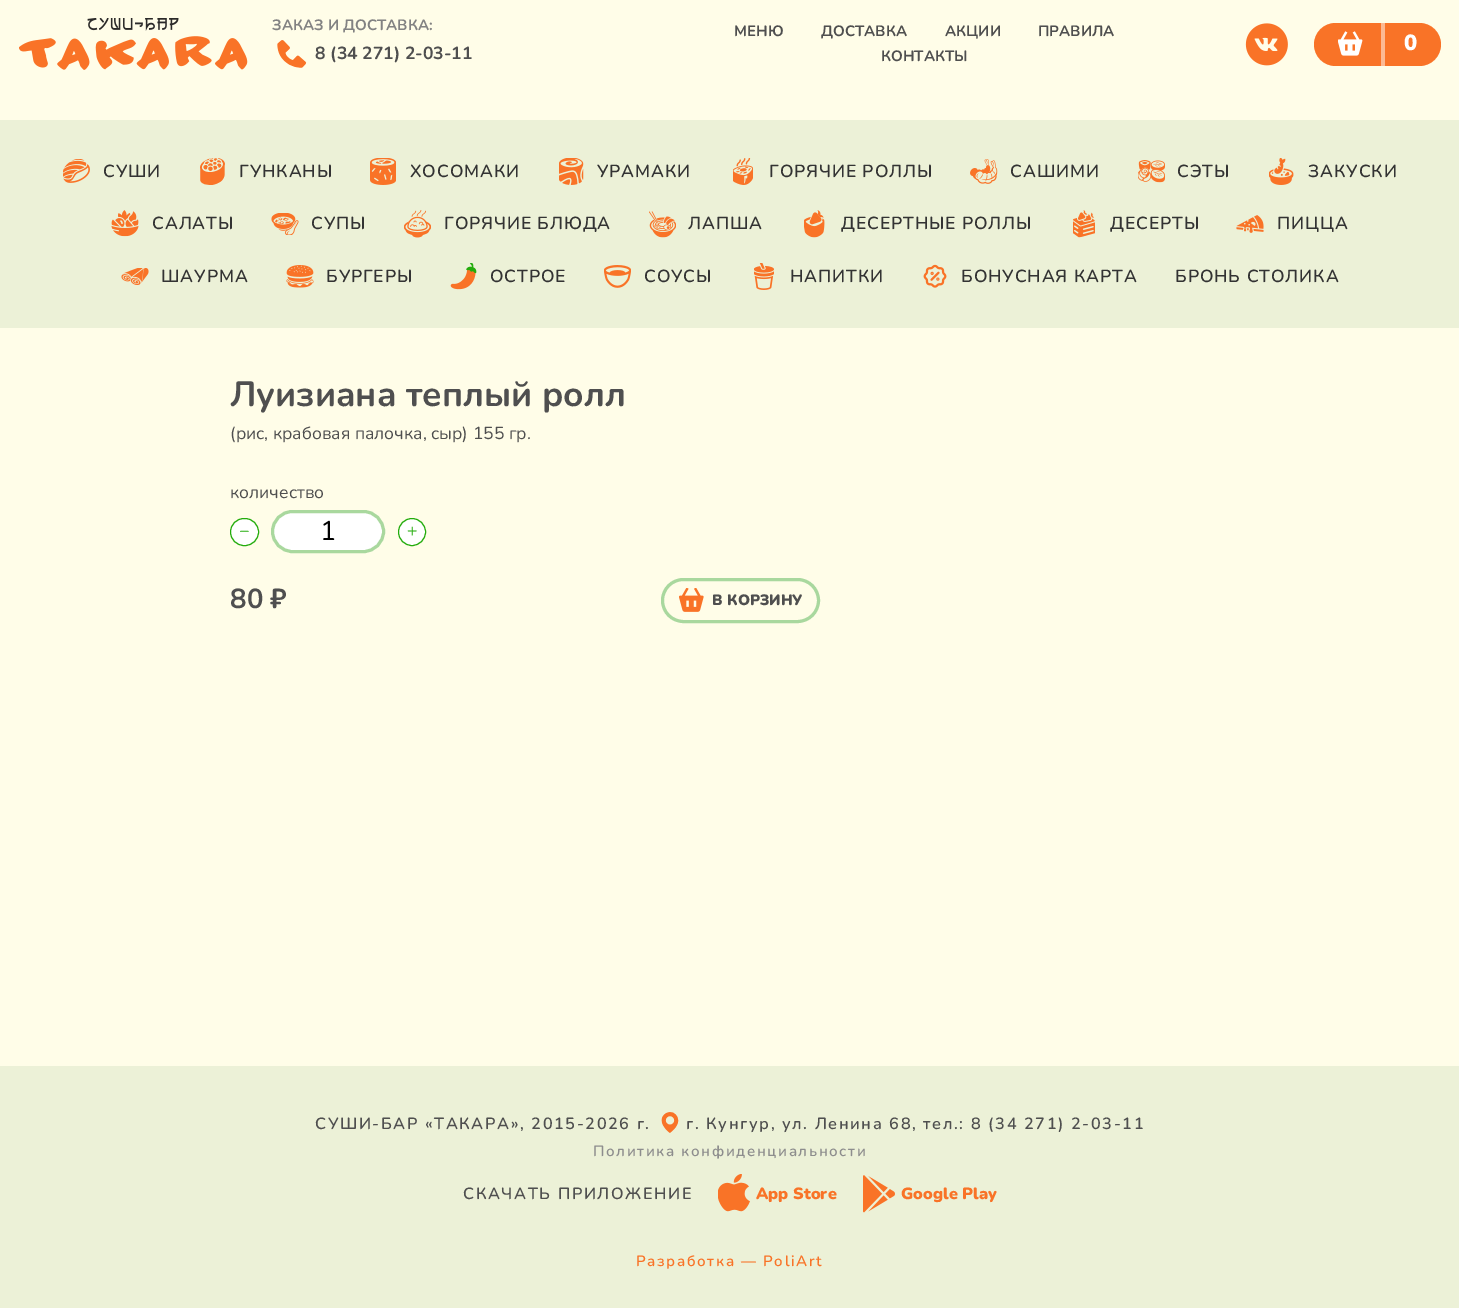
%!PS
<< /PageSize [1459 1308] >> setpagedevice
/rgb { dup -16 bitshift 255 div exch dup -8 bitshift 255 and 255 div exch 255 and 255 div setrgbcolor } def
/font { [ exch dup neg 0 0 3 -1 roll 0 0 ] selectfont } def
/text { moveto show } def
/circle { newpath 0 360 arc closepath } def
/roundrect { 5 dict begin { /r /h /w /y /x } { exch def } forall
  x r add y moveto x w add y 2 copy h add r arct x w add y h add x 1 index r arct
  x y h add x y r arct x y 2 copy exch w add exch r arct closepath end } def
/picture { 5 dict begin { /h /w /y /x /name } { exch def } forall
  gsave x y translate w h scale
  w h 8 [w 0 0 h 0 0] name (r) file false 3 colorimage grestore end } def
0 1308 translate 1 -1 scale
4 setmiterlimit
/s1 { /Nunito-Bold 15 font 16#828282 rgb } def
/s2 { /Nunito-Bold 17.5 font 16#4F4F4F rgb } def
/s3 { /Nunito-Bold 15 font 16#4F4F4F rgb } def
/s4 { /Nunito-Black 22 font 16#FFFFFF rgb } def
/s5 { /Nunito-Bold 35 font 16#4F4F4F rgb } def
/s6 { /Nunito-Regular 17.5 font 16#4F4F4F rgb } def
/s7 { /Nunito-Regular 17.5 font 16#23AC0C rgb } def
/s8 { /Nunito-Regular 27 font 16#000000 rgb } def
/s9 { /Nunito-Bold 27.5 font 16#4F4F4F rgb } def
/s10 { /Nunito-Black 15 font 16#4F4F4F rgb } def
/s11 { /Nunito-Black 16.25 font 16#F97327 rgb } def
16#FFFDE8 rgb
0 0 1459 1308 rectfill
(pic1.raw) 19 18 229 52 picture
s1
(ЗАКАЗ И ДОСТАВКА:) 272 30 text
(pic2.raw) 277 40 30 28 picture
s2
(8 \(34 271\) 2-03-11) 315 59 text
s3
(МЕНЮ) 734 36 text
(ДОСТАВКА) 821 36 text
(АКЦИИ) 945 36 text
(ПРАВИЛА) 1038 36 text
(КОНТАКТЫ) 881 61 text
(pic3.raw) 1245 23 43 43 picture
16#F97327 rgb
1314 23 127 43 21.5 roundrect fill
(pic4.raw) 1338 31 25 25 picture
16#FCB993 rgb
1381 23 4 43 rectfill
s4
(0) 1404 50 text
16#ECF1D7 rgb
0 120 1459 208 rectfill
(pic5.raw) 63 159 27 24 picture
/Nunito-SemiBold 17.5 font
16#333333 rgb
103 177 moveto 0.9 0 (СУШИ) ashow
(pic6.raw) 200 158 25 27 picture
239 177 moveto 0.9 0 (ГУНКАНЫ) ashow
(pic7.raw) 370 158 26 27 picture
410 177 moveto 0.9 0 (ХОСОМАКИ) ashow
(pic8.raw) 559 158 25 27 picture
597 177 moveto 0.9 0 (УРАМАКИ) ashow
(pic9.raw) 733 158 20 27 picture
769 177 moveto 0.9 0 (ГОРЯЧИЕ РОЛЛЫ) ashow
(pic10.raw) 970 159 28 25 picture
1010 177 moveto 0.9 0 (САШИМИ) ashow
(pic11.raw) 1138 160 27 23 picture
1177 177 moveto 0.9 0 (СЭТЫ) ashow
(pic12.raw) 1269 158 25 27 picture
1308 177 moveto 0.9 0 (ЗАКУСКИ) ashow
(pic13.raw) 111 210 28 27 picture
152 229 moveto 0.9 0 (САЛАТЫ) ashow
(pic14.raw) 271 213 28 22 picture
311 229 moveto 0.9 0 (СУПЫ) ashow
(pic15.raw) 404 210 27 28 picture
444 229 moveto 0.9 0 (ГОРЯЧИЕ БЛЮДА) ashow
(pic16.raw) 649 211 27 27 picture
688 229 moveto 0.9 0 (ЛАПША) ashow
(pic17.raw) 804 210 21 28 picture
841 229 moveto 0.9 0 (ДЕСЕРТНЫЕ РОЛЛЫ) ashow
(pic18.raw) 1073 210 22 28 picture
1110 229 moveto 0.9 0 (ДЕСЕРТЫ) ashow
(pic19.raw) 1236 215 28 18 picture
1277 229 moveto 0.9 0 (ПИЦЦА) ashow
(pic20.raw) 121 268 28 17 picture
161 282 moveto 0.9 0 (ШАУРМА) ashow
(pic21.raw) 286 265 28 23 picture
326 282 moveto 0.9 0 (БУРГЕРЫ) ashow
(pic22.raw) 450 263 27 27 picture
490 282 moveto 0.9 0 (ОСТРОЕ) ashow
(pic23.raw) 604 265 27 23 picture
644 282 moveto 0.9 0 (СОУСЫ) ashow
(pic24.raw) 754 263 20 27 picture
790 282 moveto 0.9 0 (НАПИТКИ) ashow
(pic25.raw) 923 264 24 24 picture
961 282 moveto 0.9 0 (БОНУСНАЯ КАРТА) ashow
1175 282 moveto 0.9 0 (БРОНЬ СТОЛИКА) ashow
s5
(Луизиана теплый ролл) 230 406 text
s6
(\(рис, крабовая палочка, сыр\) 155 гр.) 230 439 text
(количество) 230 498 text
16#FFFFFF rgb
230.5 518.5 28 27 13.5 roundrect gsave fill grestore
16#23AC0C rgb
stroke
(–) 240 536 text
16#FFFFFF rgb
272.5 511.5 111 40 20 roundrect gsave fill grestore
16#A9D89E rgb
3 setlinewidth
stroke
s8
(1) 320 540 text
16#FFFFFF rgb
412 532 13.5 circle gsave fill grestore
16#23AC0C rgb
1 setlinewidth
stroke
s7
(+) 407 536 text
s9
(80 ₽) 230 608 text
16#A9D89E rgb
3 setlinewidth
662.5 579.5 156 42 21 roundrect stroke
(pic26.raw) 679 588 25 24 picture
s10
(В КОРЗИНУ) 712 605 text
16#ECF1D7 rgb
0 1066 1459 242 rectfill
/Nunito-SemiBold 16.25 font
16#4F4F4F rgb
315 1129 moveto 1.62 0 (СУШИ-БАР «ТАКАРА», 2015-2026 г.) ashow
(pic27.raw) 661 1112 18 21 picture
686 1129 moveto 1.62 0 (г. Кунгур, ул. Ленина 68, тел.: 8 \(34 271\) 2-03-11) ashow
/Nunito-SemiBold 15 font
16#8D8D8D rgb
593 1156 moveto 1.62 0 (Политика конфиденциальности) ashow
/Nunito-SemiBold 16.25 font
16#4F4F4F rgb
463 1199 moveto 1.62 0 (СКАЧАТЬ ПРИЛОЖЕНИЕ) ashow
(pic28.raw) 718 1174 32 38 picture
s11
(App Store) 756 1199 text
(pic29.raw) 863 1175 32 38 picture
(Google Play) 901 1199 text
/Nunito-SemiBold 15 font
636 1266 moveto 1.62 0 (Разработка — PoliArt) ashow
showpage
